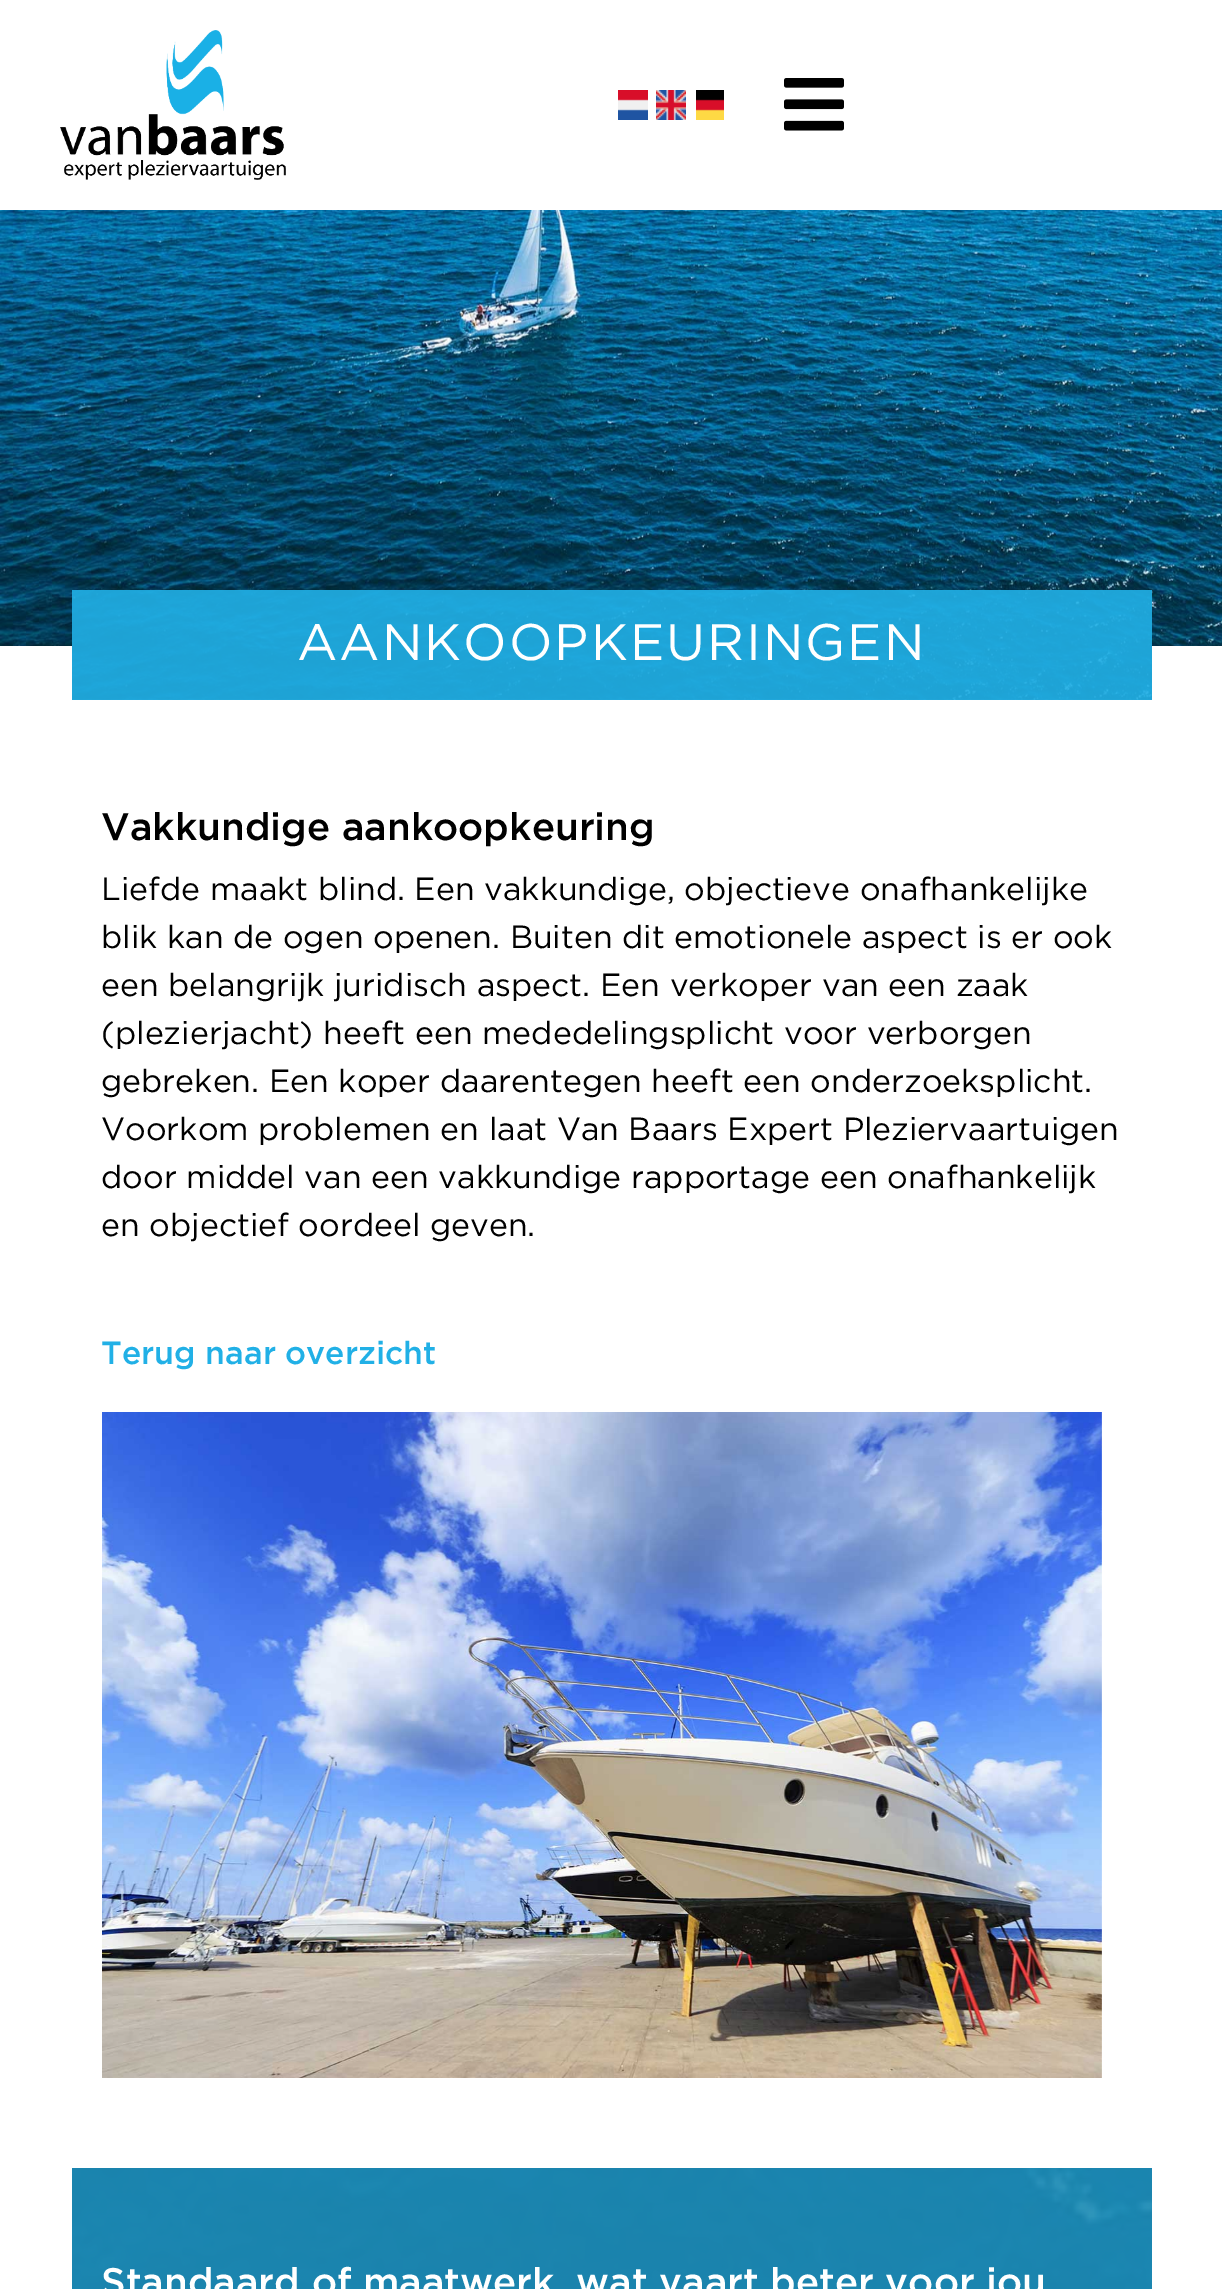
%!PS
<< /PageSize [1222 2289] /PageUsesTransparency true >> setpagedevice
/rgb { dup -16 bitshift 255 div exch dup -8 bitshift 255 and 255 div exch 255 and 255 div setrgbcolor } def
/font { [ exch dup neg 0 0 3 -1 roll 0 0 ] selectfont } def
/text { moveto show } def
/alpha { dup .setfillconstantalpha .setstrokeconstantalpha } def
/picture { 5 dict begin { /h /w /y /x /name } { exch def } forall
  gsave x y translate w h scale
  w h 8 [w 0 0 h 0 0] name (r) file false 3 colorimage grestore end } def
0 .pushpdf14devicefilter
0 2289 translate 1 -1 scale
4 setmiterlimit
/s1 { /Gotham-Medium 38.4 font 16#000000 rgb } def
/s2 { /Gotham-Regular 32 font 16#000000 rgb } def
/s3 { /Gotham-Medium 32 font 16#21B0E6 rgb } def
/s4 { /Gotham-Medium 38.4 font 16#FFFFFF rgb } def
16#FFFFFF rgb
0 0 1222 2289 rectfill
(pic1.raw) 0 210 1222 490 picture
(pic2.raw) 60 30 226 150 picture
(pic3.raw) 618 90 30 30 picture
(pic4.raw) 656 90 30 30 picture
(pic5.raw) 696 90 28 30 picture
(pic6.raw) 784 78 60 53 picture
0.9 alpha
16#21B0E6 rgb
72 590 1080 110 rectfill
/Gotham-Regular 51.25 font
1 alpha
16#FFFFFF rgb
297 660 moveto 2 0 (AANKOOPKEURINGEN) ashow
0 646 72 54 rectfill
1152 646 70 54 rectfill
s1
(Vakkundige aankoopkeuring) 101 840 text
s2
(Liefde maakt blind. Een vakkundige, objectieve onafhankelijke) 101 900 text
(blik kan de ogen openen. Buiten dit emotionele aspect is er ook) 101 948 text
(een belangrijk juridisch aspect. Een verkoper van een zaak) 101 996 text
(\(plezierjacht\) heeft een mededelingsplicht voor verborgen) 101 1044 text
(gebreken. Een koper daarentegen heeft een onderzoeksplicht.) 101 1092 text
(Voorkom problemen en laat Van Baars Expert Pleziervaartuigen) 101 1140 text
(door middel van een vakkundige rapportage een onafhankelijk) 101 1188 text
(en objectief oordeel geven.) 101 1236 text
s3
(Terug naar overzicht) 101 1364 text
(pic7.raw) 102 1412 1000 666 picture
(pic8.raw) 72 2168 1080 121 picture
0.9 alpha
16#1D89B2 rgb
72 2168 1080 121 rectfill
1 alpha
s4
(Standaard of maatwerk, wat vaart beter voor jou) 101 2295 text
.poppdf14devicefilter showpage
